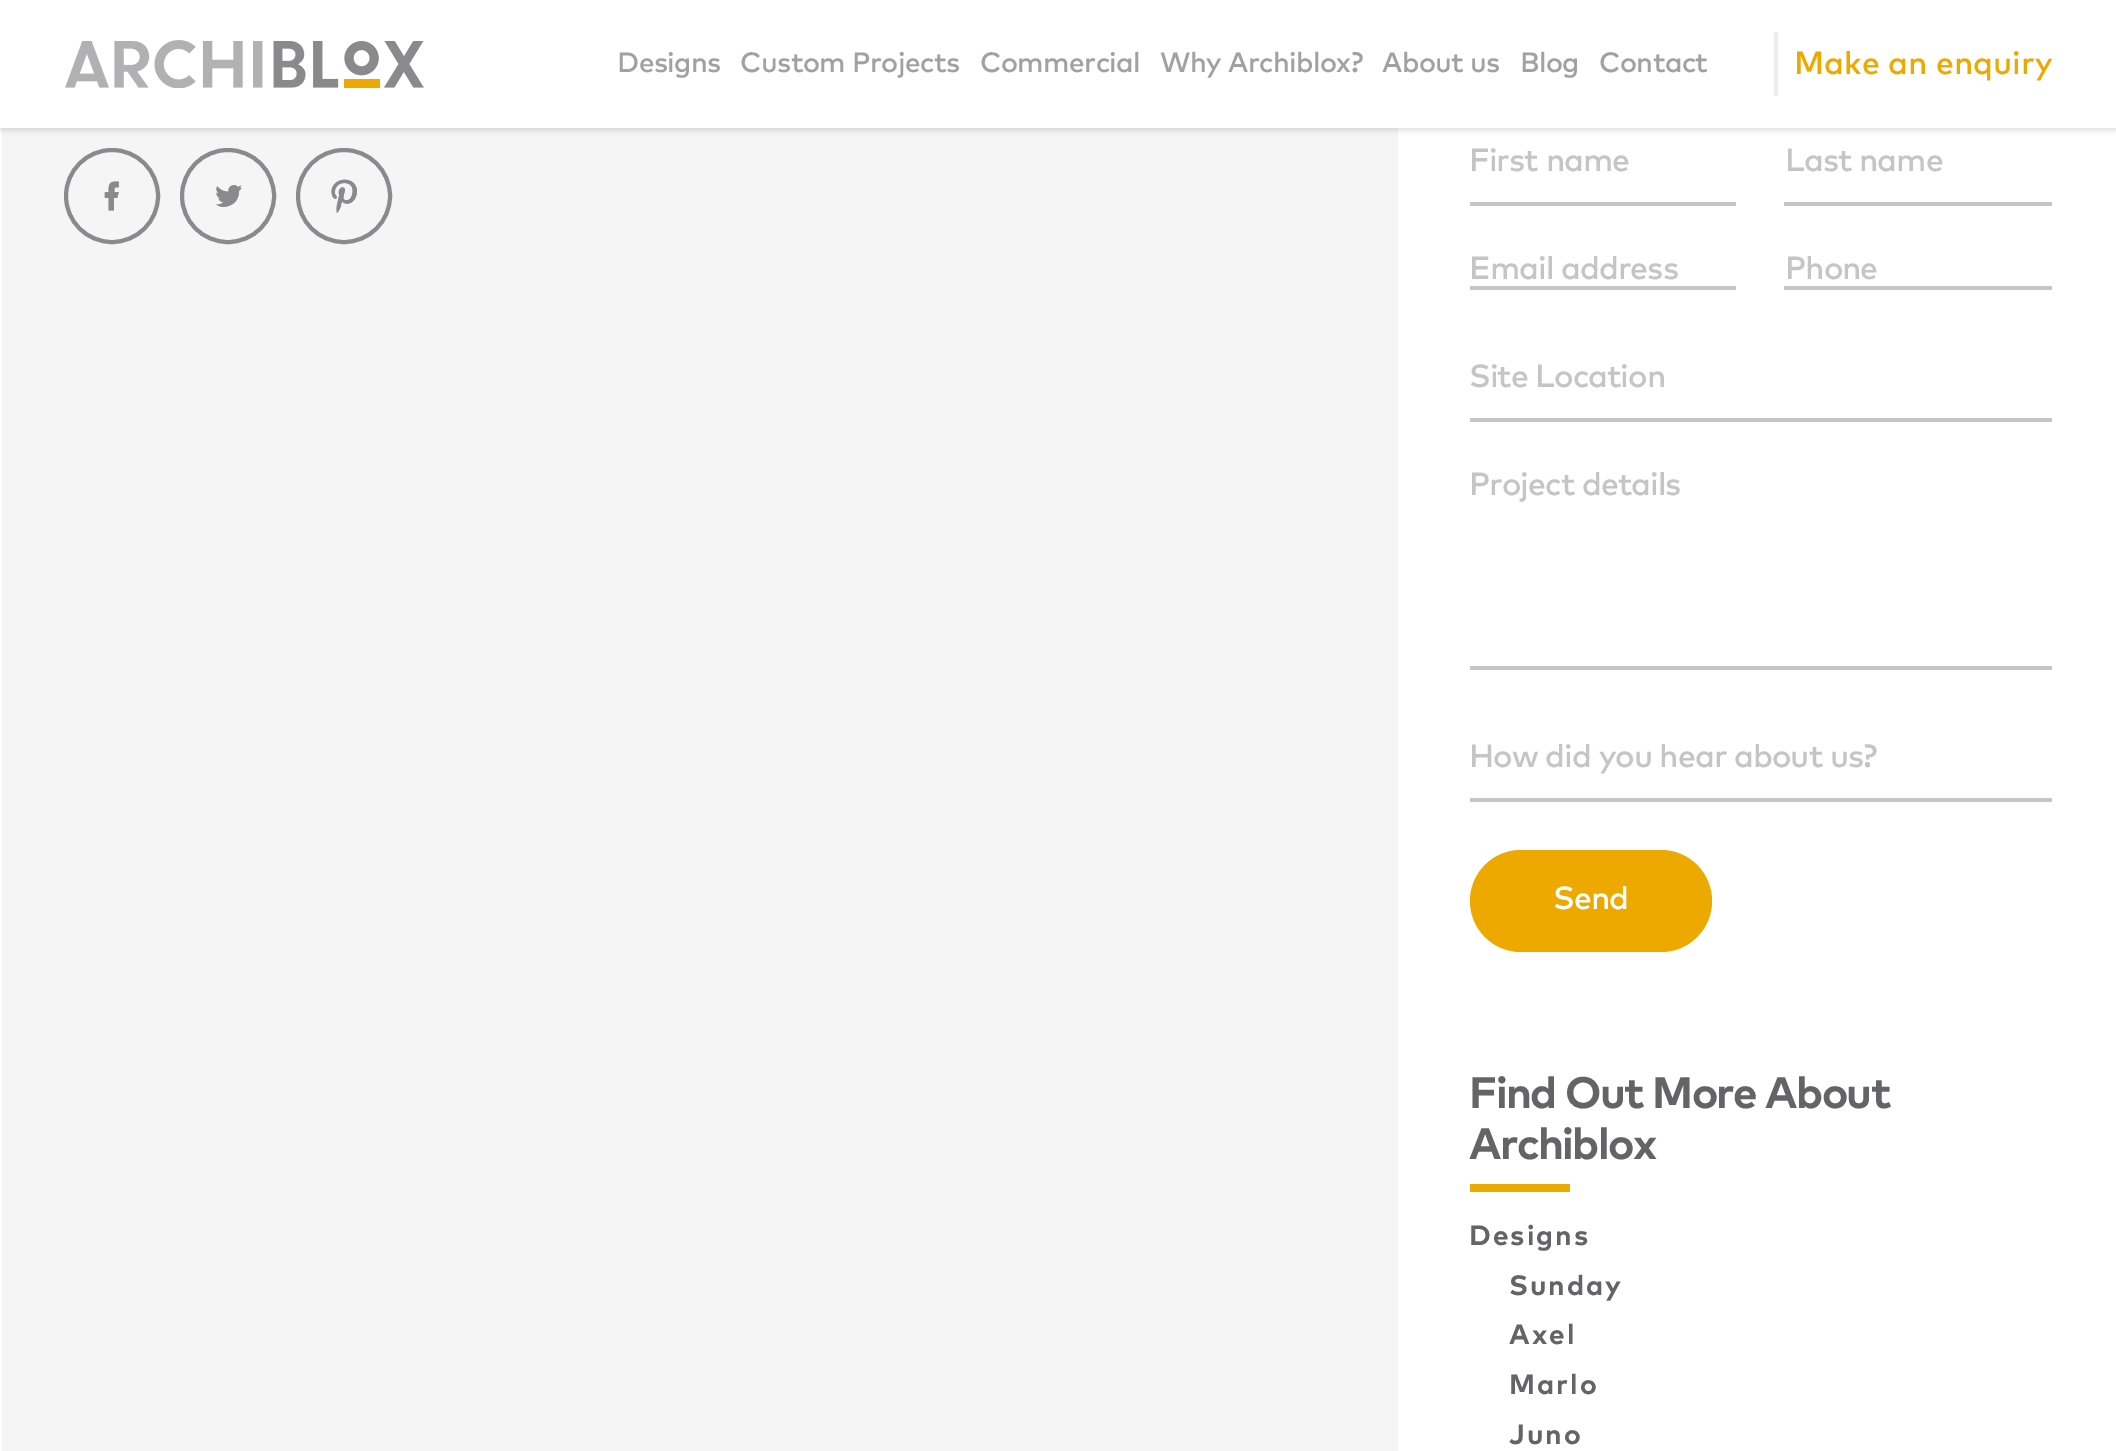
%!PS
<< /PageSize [2116 1451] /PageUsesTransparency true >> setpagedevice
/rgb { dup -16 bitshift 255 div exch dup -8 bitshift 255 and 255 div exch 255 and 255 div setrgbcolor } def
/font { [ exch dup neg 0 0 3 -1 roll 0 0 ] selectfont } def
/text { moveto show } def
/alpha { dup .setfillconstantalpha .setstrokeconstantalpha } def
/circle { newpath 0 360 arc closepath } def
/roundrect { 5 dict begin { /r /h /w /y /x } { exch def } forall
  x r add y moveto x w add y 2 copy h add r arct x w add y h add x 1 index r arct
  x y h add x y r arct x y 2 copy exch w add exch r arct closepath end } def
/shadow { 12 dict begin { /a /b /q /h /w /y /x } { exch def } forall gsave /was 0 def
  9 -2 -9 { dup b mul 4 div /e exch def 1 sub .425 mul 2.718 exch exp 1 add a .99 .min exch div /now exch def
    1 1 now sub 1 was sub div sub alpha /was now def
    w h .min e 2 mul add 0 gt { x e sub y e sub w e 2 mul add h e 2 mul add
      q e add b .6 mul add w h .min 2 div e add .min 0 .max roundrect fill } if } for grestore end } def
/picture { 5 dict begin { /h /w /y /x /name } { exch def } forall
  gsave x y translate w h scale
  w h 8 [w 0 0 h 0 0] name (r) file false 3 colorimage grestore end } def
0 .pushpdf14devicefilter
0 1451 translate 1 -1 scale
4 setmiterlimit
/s1 { /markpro-Regular 32 font 16#EDA900 rgb } def
16#FFFFFF rgb
0 0 2116 1451 rectfill
16#F5F5F5 rgb
2 128 1396 1323 rectfill
16#18181A rgb
0 2 2116 128 0 3 0.15 shadow
16#FFFFFF rgb
0 0 2116 128 rectfill
(pic1.raw) 65 40 359 48 picture
/markpro-Regular 28 font
16#A1A1A4 rgb
617 72 moveto -0.6 0 (Designs) ashow
740 72 moveto -0.6 0 (Custom Projects) ashow
980 72 moveto -0.6 0 (Commercial) ashow
1160 72 moveto -0.6 0 (Why Archiblox?) ashow
1382 72 moveto -0.6 0 (About us) ashow
1520 72 moveto -0.6 0 (Blog) ashow
1599 72 moveto -0.6 0 (Contact) ashow
16#EEEEF0 rgb
1774 32 4 64 rectfill
s1
(Make an enquiry) 1794 74 text
16#8A8A8D rgb
4 setlinewidth
112 196 46 circle stroke
(pic2.raw) 104 181 15 30 picture
(pic3.raw) 104 181 15 30 picture
228 196 46 circle stroke
(pic4.raw) 216 185 26 22 picture
(pic5.raw) 216 185 26 22 picture
344 196 46 circle stroke
(pic6.raw) 331 179 26 34 picture
(pic7.raw) 331 179 26 34 picture
16#C5C5C6 rgb
1470 202 266 4 rectfill
1469 171 moveto -1 0 (First name) ashow
1784 202 268 4 rectfill
1785 171 moveto -1 0 (Last name) ashow
1470 286 266 4 rectfill
1469 279 moveto -1 0 (Email address) ashow
1784 286 268 4 rectfill
1785 279 moveto -1 0 (Phone) ashow
1470 418 582 4 rectfill
1469 387 moveto -1 0 (Site Location) ashow
1470 666 582 4 rectfill
1469 495 moveto -1 0 (Project details) ashow
1470 798 582 4 rectfill
1469 767 moveto -1 0 (How did you hear about us?) ashow
16#EDA900 rgb
1470 850 242 102 51 roundrect fill
16#FFFFFF rgb
1553 909 moveto -1 0 (Send) ashow
/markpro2-Regular 44 font
16#646466 rgb
1469 1108 moveto -1.6 0 (Find Out More About) ashow
1469 1159 moveto -1.6 0 (Archiblox) ashow
16#EDA900 rgb
1470 1184 100 8 rectfill
/markpro2-Regular 28 font
16#646466 rgb
1469 1245 moveto 2 0 (Designs) ashow
1509 1295 moveto 2 0 (Sunday) ashow
1509 1344 moveto 2 0 (Axel) ashow
1509 1394 moveto 2 0 (Marlo) ashow
1509 1444 moveto 2 0 (Juno) ashow
.poppdf14devicefilter showpage
